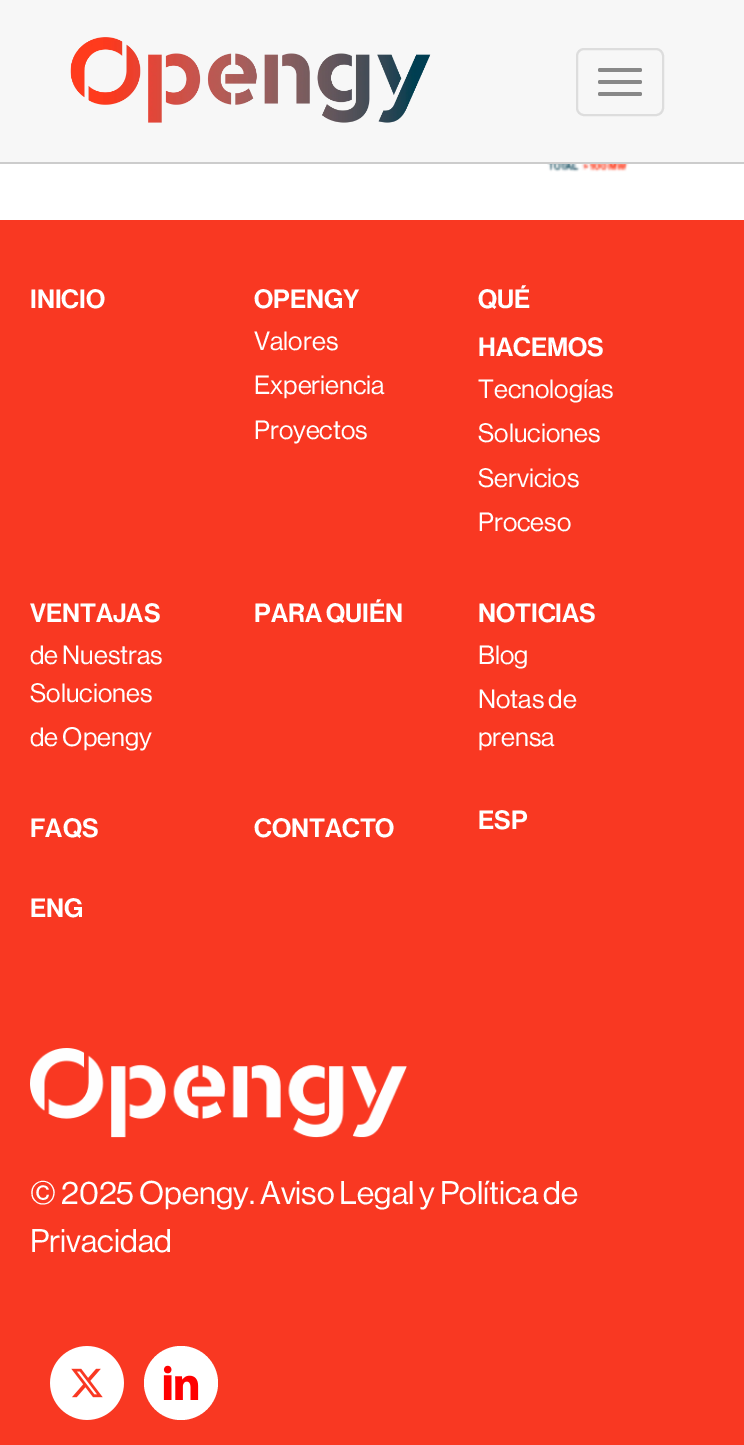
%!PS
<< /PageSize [744 1445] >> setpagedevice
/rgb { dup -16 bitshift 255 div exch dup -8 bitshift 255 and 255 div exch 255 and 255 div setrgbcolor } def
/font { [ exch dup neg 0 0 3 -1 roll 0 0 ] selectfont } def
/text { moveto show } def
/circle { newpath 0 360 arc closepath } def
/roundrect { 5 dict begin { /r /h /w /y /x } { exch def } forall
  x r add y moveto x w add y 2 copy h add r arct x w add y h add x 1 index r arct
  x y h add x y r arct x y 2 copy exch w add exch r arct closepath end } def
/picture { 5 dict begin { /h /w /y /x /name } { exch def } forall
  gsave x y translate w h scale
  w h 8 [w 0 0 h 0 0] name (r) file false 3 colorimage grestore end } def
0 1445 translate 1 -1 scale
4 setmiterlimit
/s1 { /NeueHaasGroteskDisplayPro-Medium 26 font 16#FFFFFF rgb } def
/s2 { /NeueHaasGroteskDisplayPro-Regular 26 font 16#FFFFFF rgb } def
/s3 { /NeueHaasGroteskDisplayPro-Regular 32 font 16#FFFFFF rgb } def
16#FFFFFF rgb
0 0 744 1445 rectfill
16#F7F7F7 rgb
0 0 744 162 rectfill
16#CCCCCC rgb
0 162 744 2 rectfill
(pic1.raw) 70 37 361 86 picture
16#DDDDDD rgb
2 setlinewidth
577 49 86 66 7 roundrect stroke
16#888888 rgb
598 68 44 4 2 roundrect fill
598 80 44 4 2 roundrect fill
598 92 44 4 2 roundrect fill
(pic2.raw) 547 164 82 8 picture
16#F93822 rgb
0 220 744 1225 rectfill
s1
(INICIO) 30 308 text
(OPENGY) 254 308 text
s2
(Valores) 254 350 text
(Experiencia) 254 394 text
(Proyectos) 254 439 text
s1
(QUÉ) 478 308 text
(HACEMOS) 478 356 text
s2
(Tecnologías) 478 398 text
(Soluciones) 478 442 text
(Servicios) 478 487 text
(Proceso) 478 531 text
s1
(VENTAJAS) 30 622 text
s2
(de Nuestras) 30 664 text
(Soluciones) 30 702 text
(de Opengy) 30 746 text
s1
(PARA QUIÉN) 254 622 text
(NOTICIAS) 478 622 text
s2
(Blog) 478 664 text
(Notas de) 478 708 text
(prensa) 478 746 text
s1
(FAQS) 30 837 text
(CONTACTO) 254 837 text
(ESP) 478 829 text
(ENG) 30 917 text
(pic3.raw) 30 1048 377 90 picture
s3
(© 2025 Opengy. Aviso Legal y Política de) 30 1204 text
(Privacidad) 30 1252 text
(pic4.raw) 50 1346 74 74 picture
181 1383 37 circle fill
(pic5.raw) 163 1365 36 35 picture
showpage
